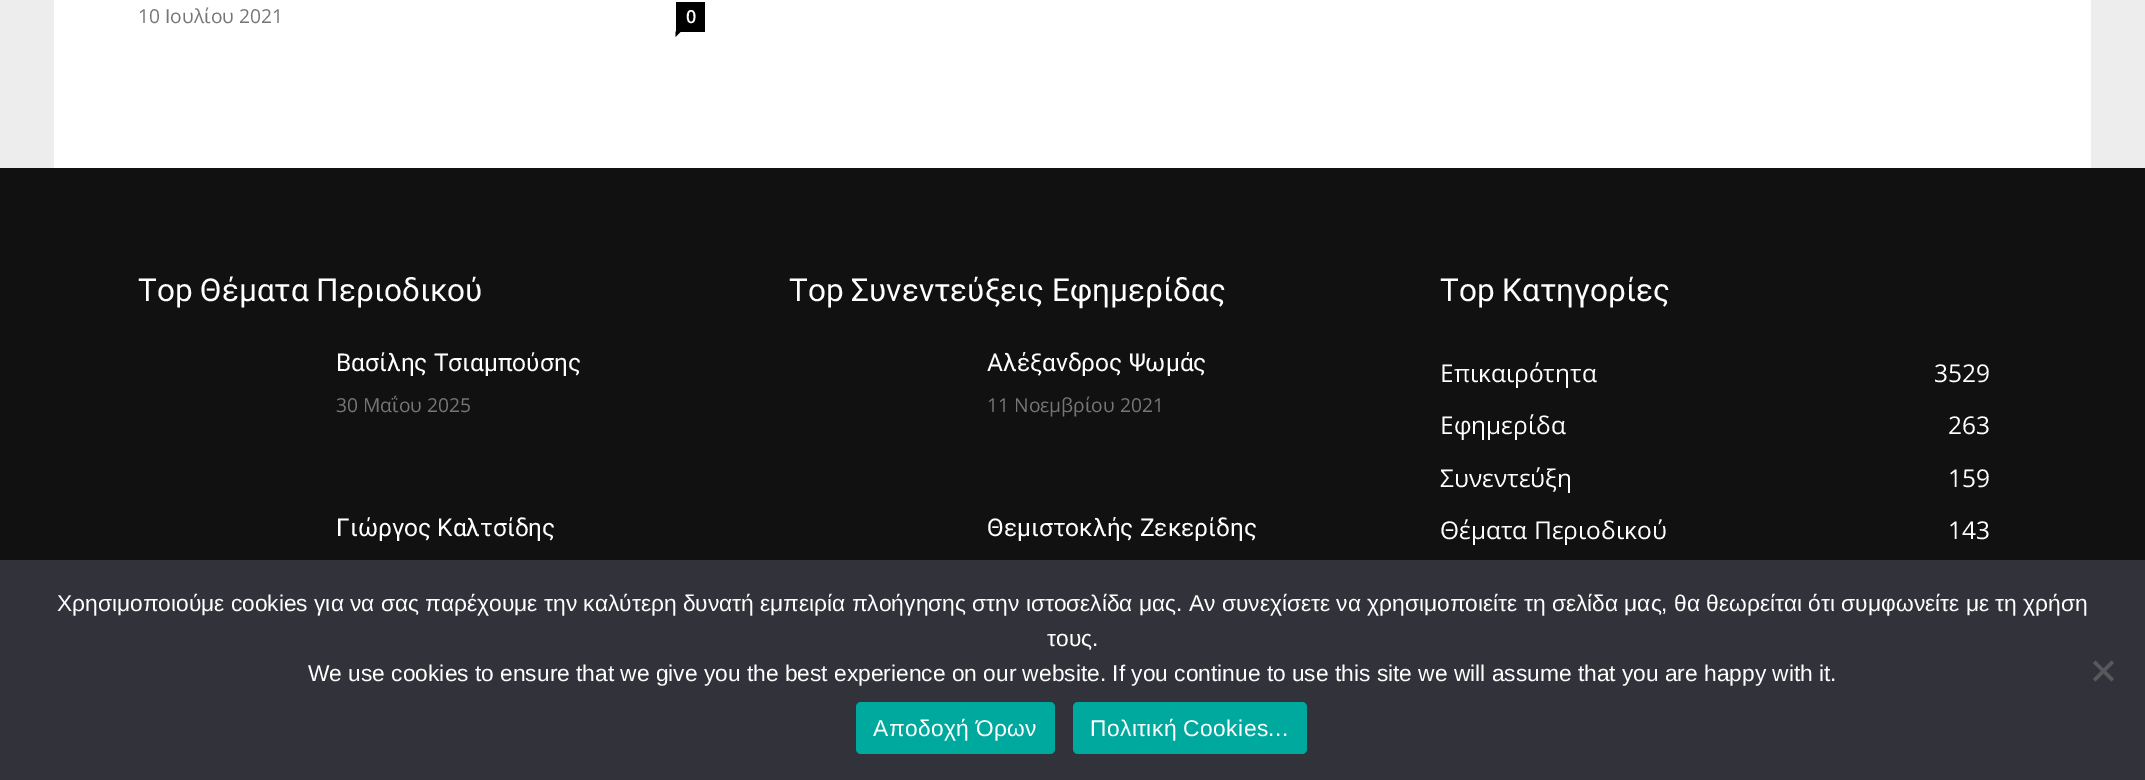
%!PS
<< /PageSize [2145 780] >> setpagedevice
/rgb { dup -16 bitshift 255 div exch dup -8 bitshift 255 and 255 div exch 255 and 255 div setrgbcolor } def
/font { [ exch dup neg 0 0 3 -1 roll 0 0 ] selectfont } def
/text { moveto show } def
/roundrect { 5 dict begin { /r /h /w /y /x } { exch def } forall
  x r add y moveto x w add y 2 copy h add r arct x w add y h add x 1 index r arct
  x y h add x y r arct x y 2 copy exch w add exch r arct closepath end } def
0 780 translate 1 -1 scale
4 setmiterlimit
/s1 { /OpenSans-Regular 19.25 font 16#767676 rgb } def
/s2 { /OpenSans-SemiBold 18 font 16#FFFFFF rgb } def
/s3 { /Roboto-Regular 31.5 font 16#FFFFFF rgb } def
/s4 { /Roboto-Regular 24.5 font 16#FFFFFF rgb } def
/s5 { /OpenSans-Regular 24.5 font 16#FFFFFF rgb } def
/s6 { /LiberationSans-Regular 22.75 font 16#FFFFFF rgb } def
16#EDEDED rgb
0 0 2145 780 rectfill
16#FFFFFF rgb
54 0 2037 168 rectfill
s1
(10 Ιουλίου 2021) 138 23 text
16#000000 rgb
676 2 29 30 rectfill
s2
(0) 686 23 text
16#000000 rgb
675.5 31.5 moveto 681 31.5 lineto 675.5 37 lineto closepath fill
16#111111 rgb
0 168 2145 392 rectfill
s3
(Top Θέματα Περιοδικού) 138 301 text
s4
(Βασίλης Τσιαμπούσης) 336 371 text
s1
(30 Μαΐου 2025) 336 412 text
s4
(Γιώργος Καλτσίδης) 336 536 text
s3
(Top Συνεντεύξεις Εφημερίδας) 789 301 text
s4
(Αλέξανδρος Ψωμάς) 987 371 text
s1
(11 Νοεμβρίου 2021) 987 412 text
s4
(Θεμιστοκλής Ζεκερίδης) 987 536 text
s3
(Top Κατηγορίες) 1440 301 text
s5
(Επικαιρότητα) 1440 382 text
(3529) 1934 382 text
(Εφημερίδα) 1440 434 text
(263) 1948 434 text
(Συνεντεύξη) 1440 487 text
(159) 1948 487 text
(Θέματα Περιοδικού) 1440 539 text
(143) 1948 539 text
16#32323A rgb
0 560 2145 220 rectfill
s6
(Χρησιμοποιούμε cookies για να σας παρέχουμε την καλύτερη δυνατή εμπειρία πλοήγησης στην ιστοσελίδα μας. Αν συνεχίσετε να χρησιμοποιείτε τη σελίδα μας, θα θεωρείται ότι συμφωνείτε με τη χρήση) 57 611 text
(τους.) 1047 646 text
(We use cookies to ensure that we give you the best experience on our website. If you continue to use this site we will assume that you are happy with it.) 308 681 text
16#59595D rgb
2111.5 660.5 moveto 2114 663 lineto 2095.5 681.5 lineto 2093 679 lineto closepath fill
2093 663 moveto 2095.5 660.5 lineto 2114 679 lineto 2111.5 681.5 lineto closepath fill
16#00A99D rgb
856 702 199 52 5 roundrect fill
16#FFFFFF rgb
873 736 moveto 0.4 0 (Αποδοχή Όρων) ashow
16#00A99D rgb
1073 702 234 52 5 roundrect fill
16#FFFFFF rgb
1090 736 moveto 0.4 0 (Πολιτική Cookies...) ashow
showpage
